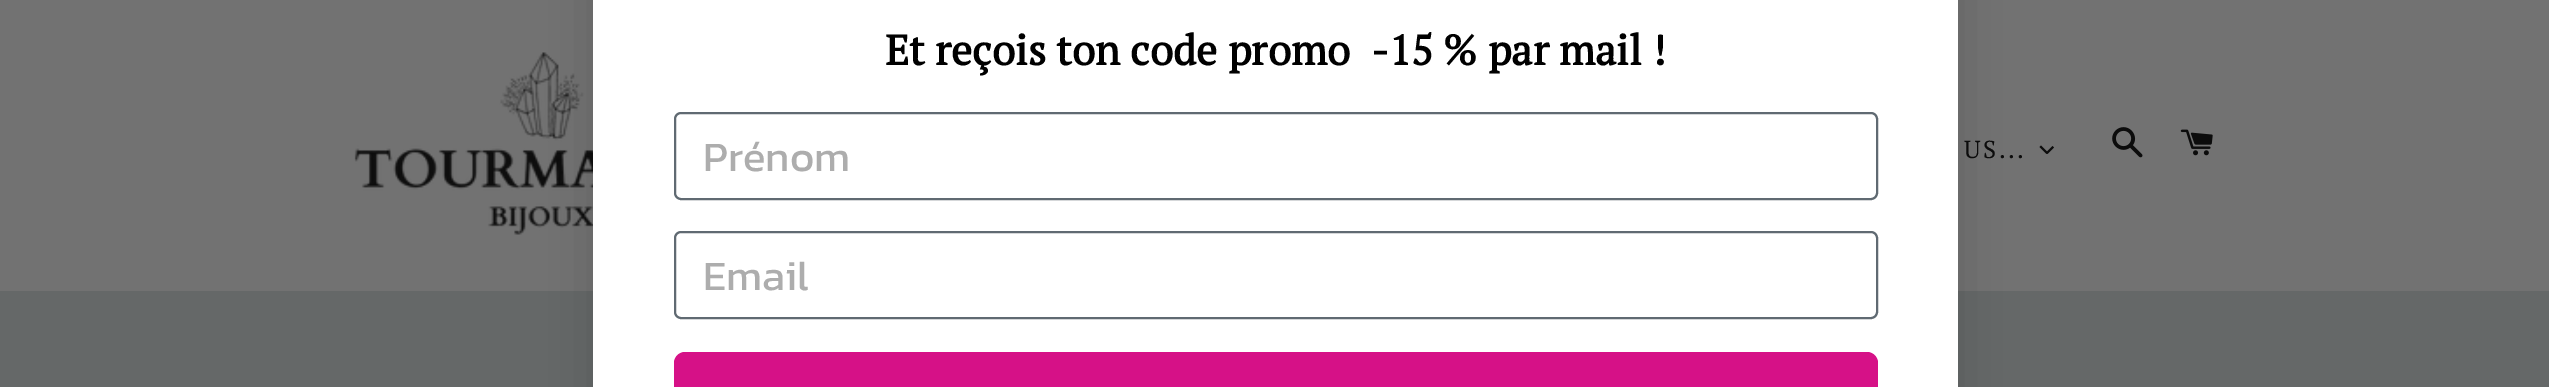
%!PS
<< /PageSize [2549 387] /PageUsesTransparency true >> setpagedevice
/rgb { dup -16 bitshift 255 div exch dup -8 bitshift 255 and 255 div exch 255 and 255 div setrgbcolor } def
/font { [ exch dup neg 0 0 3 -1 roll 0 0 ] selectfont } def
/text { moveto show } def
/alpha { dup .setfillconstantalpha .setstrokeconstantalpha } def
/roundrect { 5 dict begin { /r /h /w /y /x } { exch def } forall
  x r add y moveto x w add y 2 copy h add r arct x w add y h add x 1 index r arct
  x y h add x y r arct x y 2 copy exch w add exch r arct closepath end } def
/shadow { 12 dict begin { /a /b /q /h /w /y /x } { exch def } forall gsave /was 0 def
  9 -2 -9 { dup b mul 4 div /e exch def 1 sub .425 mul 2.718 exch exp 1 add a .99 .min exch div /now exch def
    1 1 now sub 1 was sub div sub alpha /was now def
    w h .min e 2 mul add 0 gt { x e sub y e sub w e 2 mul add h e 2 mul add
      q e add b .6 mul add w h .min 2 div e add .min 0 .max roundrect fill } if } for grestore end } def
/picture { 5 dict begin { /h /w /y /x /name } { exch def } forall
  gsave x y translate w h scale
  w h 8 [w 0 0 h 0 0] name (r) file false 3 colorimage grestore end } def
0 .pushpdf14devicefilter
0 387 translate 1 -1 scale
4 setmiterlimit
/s1 { /PTSerif-Bold 42 font 16#000000 rgb } def
/s2 { /Kanit-Regular 42 font 16#ADADAD rgb } def
16#727272 rgb
0 0 2549 387 rectfill
(pic1.raw) 354 52 239 183 picture
16#656868 rgb
0 291 2549 96 rectfill
16#000000 rgb
593 -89 1365 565 11 26 0.15 shadow
16#FFFFFF rgb
593 0 1365 387 rectfill
s1
(Et reçois ton code promo  -15 % par mail !) 885 65 text
16#606A72 rgb
2 setlinewidth
675 113 1202 86 6 roundrect stroke
s2
(Prénom) 703 171 text
16#606A72 rgb
675 232 1202 86 6 roundrect stroke
s2
(Email) 703 290 text
16#D61187 rgb
685 352 moveto 1867 352 lineto 1873 352 1878 357 1878 363 curveto 1878 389 lineto 674 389 lineto 674 363 lineto 674 357 679 352 685 352 curveto closepath fill
/PTSerif-Regular 24.5 font
16#0C0C0C rgb
1964 158 moveto 2.5 0 (US...) ashow
2052.5 146 moveto 2054 147.5 lineto 2047.5 154 lineto 2046 152.5 lineto closepath fill
2041 145.5 moveto 2048 152.5 lineto 2046.5 154 lineto 2039.5 147 lineto closepath fill
(pic2.raw) 2112 127 31 31 picture
(pic3.raw) 2180 129 33 27 picture
.poppdf14devicefilter showpage
